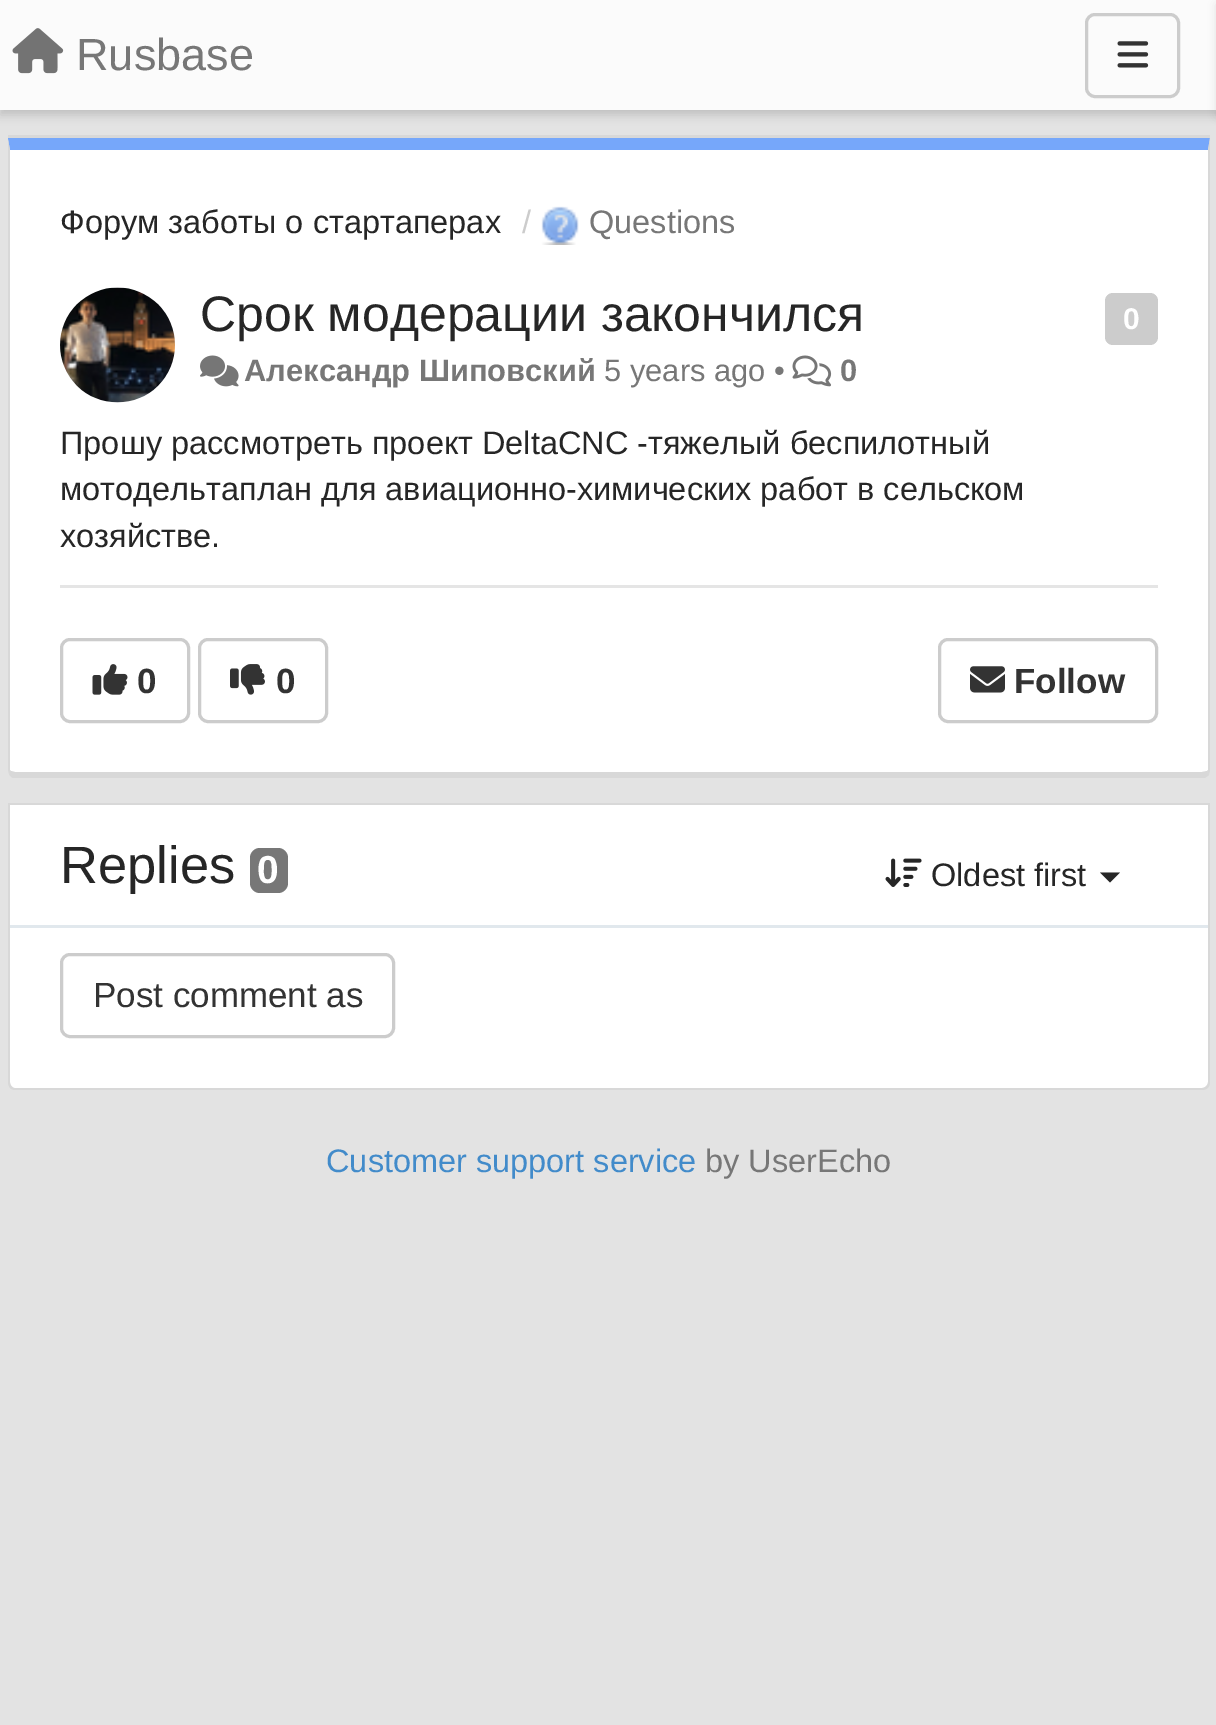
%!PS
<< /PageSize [1216 1725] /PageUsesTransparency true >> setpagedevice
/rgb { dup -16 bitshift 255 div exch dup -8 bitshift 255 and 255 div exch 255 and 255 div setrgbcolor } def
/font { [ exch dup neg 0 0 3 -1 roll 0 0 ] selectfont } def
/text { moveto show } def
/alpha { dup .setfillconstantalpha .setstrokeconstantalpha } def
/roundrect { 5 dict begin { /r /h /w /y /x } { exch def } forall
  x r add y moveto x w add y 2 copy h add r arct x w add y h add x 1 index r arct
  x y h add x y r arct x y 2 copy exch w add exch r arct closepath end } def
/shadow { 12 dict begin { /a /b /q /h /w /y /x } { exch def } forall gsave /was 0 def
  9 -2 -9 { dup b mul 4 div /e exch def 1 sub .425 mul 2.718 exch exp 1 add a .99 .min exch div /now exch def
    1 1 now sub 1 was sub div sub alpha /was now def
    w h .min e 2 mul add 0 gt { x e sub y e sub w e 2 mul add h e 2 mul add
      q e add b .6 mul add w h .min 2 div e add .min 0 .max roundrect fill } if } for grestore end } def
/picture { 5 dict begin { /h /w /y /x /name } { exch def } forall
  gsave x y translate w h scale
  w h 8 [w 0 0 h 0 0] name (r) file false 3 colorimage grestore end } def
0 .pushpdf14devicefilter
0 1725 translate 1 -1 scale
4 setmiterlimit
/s1 { /LiberationSans-Regular 45 font 16#777777 rgb } def
/s2 { /LiberationSans-Regular 32.5 font 16#262626 rgb } def
/s3 { /LiberationSans-Regular 32.5 font 16#CCCCCC rgb } def
/s4 { /LiberationSans-Regular 32.5 font 16#777777 rgb } def
/s5 { /LiberationSans-Regular 50 font 16#262626 rgb } def
/s6 { /LiberationSans-Bold 30 font 16#FFFFFF rgb } def
/s7 { /LiberationSans-Bold 30.9 font 16#777777 rgb } def
/s8 { /LiberationSans-Regular 30.9 font 16#777777 rgb } def
/s9 { /LiberationSans-Bold 35 font 16#333333 rgb } def
/s10 { /LiberationSans-Regular 52.5 font 16#262626 rgb } def
/s11 { /LiberationSans-Bold 39 font 16#FFFFFF rgb } def
/s12 { /LiberationSans-Regular 35 font 16#333333 rgb } def
/s13 { /LiberationSans-Regular 32.5 font 16#428BCA rgb } def
16#E3E3E3 rgb
0 0 1216 1725 rectfill
16#000000 rgb
0 5 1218 110 0 5 0.15 shadow
16#FBFBFB rgb
0 0 1216 110 rectfill
(pic1.raw) 12 28 52 46 picture
s1
(Rusbase) 76 70 text
16#CCCCCC rgb
3 setlinewidth
1086.5 14.5 92 82 8.5 roundrect stroke
(pic2.raw) 1117 41 32 27 picture
16#000000 rgb
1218 5 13 110 0 5 0.15 shadow
16#D8D8D8 rgb
8 135 1202 3 rectfill
16#FFFFFF rgb
10 150 moveto 1208 150 lineto 1208 770 lineto 1208 771 1205 772 1202 772 curveto 15 772 lineto 12 772 10 771 10 770 curveto closepath fill
16#76A7FA rgb
8 138 moveto 10 150 lineto 1208 150 lineto 1210 138 lineto closepath fill
16#D8D8D8 rgb
1210 770 moveto 1210 138 lineto 1208 150 lineto 1208 770 lineto 1207 771 lineto 1209 775 lineto 1209 773 1210 772 1210 770 curveto closepath fill
13 778 moveto 11 777 10 776 9 774 curveto 11 771 lineto 15 772 lineto 1202 772 lineto 1207 771 lineto 1209 775 lineto 1208 776 1206 777 1205 778 curveto closepath fill
10 150 moveto 8 140 lineto 8 770 lineto 9 774 lineto 11 771 lineto 10 770 lineto closepath fill
s2
(Форум заботы о стартаперах) 60 233 text
s3
(/) 522 233 text
(pic3.raw) 541 206 38 39 picture
s4
(Questions) 589 233 text
(pic4.raw) 60 287 115 116 picture
s5
(Срок модерации закончился) 200 331 text
16#CCCCCC rgb
1105 293 53 52 8 roundrect fill
s6
(0) 1123 329 text
(pic5.raw) 200 355 39 32 picture
s7
(Александр Шиповский) 244 381 text
s8
(5 years ago •) 604 381 text
(pic6.raw) 792 355 40 32 picture
s7
(0) 840 381 text
s2
(Прошу рассмотреть проект DeltaCNC -тяжелый беспилотный) 60 454 text
(мотодельтаплан для авиационно-химических работ в сельском) 60 500 text
(хозяйстве.) 60 547 text
16#E5E5E5 rgb
60 585 1098 3 rectfill
16#CCCCCC rgb
61.5 639.5 127 82 8.5 roundrect stroke
(pic7.raw) 92 664 36 31 picture
s9
(0) 137 693 text
16#CCCCCC rgb
199.5 639.5 127 82 8.5 roundrect stroke
(pic8.raw) 230 664 35 31 picture
s9
(0) 276 693 text
16#CCCCCC rgb
939.5 639.5 217 82 8.5 roundrect stroke
(pic9.raw) 970 666 35 27 picture
s9
(Follow) 1014 693 text
16#D8D8D8 rgb
8 803 1202 2 rectfill
16#FFFFFF rgb
10 805 moveto 1208 805 lineto 1208 1083 lineto 1208 1086 1206 1088 1203 1088 curveto 15 1088 lineto 12 1088 10 1086 10 1083 curveto closepath fill
16#D8D8D8 rgb
8 805 moveto 1210 805 lineto 1210 1082 lineto 1210 1087 1207 1090 1202 1090 curveto 15 1090 lineto 11 1090 8 1087 8 1082 curveto closepath 10 805 moveto 1208 805 lineto 1208 1082 lineto 1208 1085 1205 1088 1202 1088 curveto 15 1088 lineto 12 1088 10 1085 10 1082 curveto closepath eofill
s10
(Replies) 60 883 text
16#777777 rgb
250 848 38 45 10 roundrect fill
s11
(0) 257 883 text
(pic10.raw) 885 858 37 29 picture
s2
(Oldest first) 931 886 text
1100 872.5 moveto 1120 872.5 lineto 1110 882.5 lineto closepath fill
16#E1E8ED rgb
10 925 1198 3 rectfill
16#CCCCCC rgb
61.5 954.5 332 82 8.5 roundrect stroke
s12
(Post comment as) 93 1007 text
s13
(Customer support service) 326 1172 text
s4
(by UserEcho) 705 1172 text
.poppdf14devicefilter showpage
